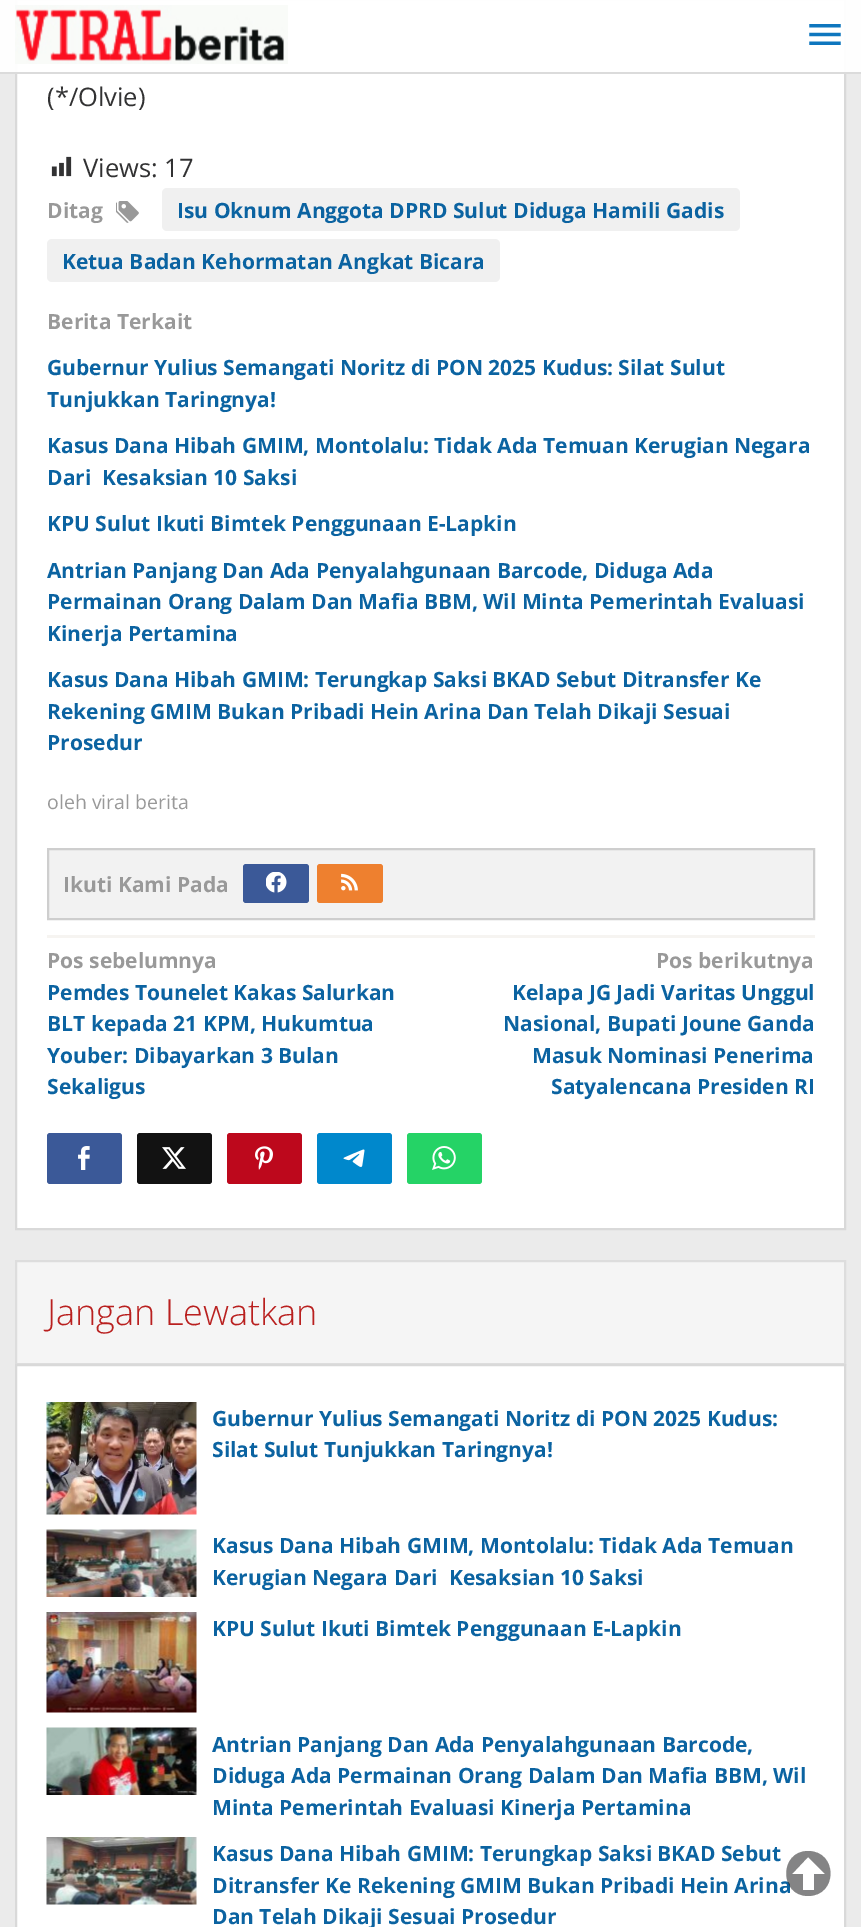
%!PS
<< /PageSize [861 1927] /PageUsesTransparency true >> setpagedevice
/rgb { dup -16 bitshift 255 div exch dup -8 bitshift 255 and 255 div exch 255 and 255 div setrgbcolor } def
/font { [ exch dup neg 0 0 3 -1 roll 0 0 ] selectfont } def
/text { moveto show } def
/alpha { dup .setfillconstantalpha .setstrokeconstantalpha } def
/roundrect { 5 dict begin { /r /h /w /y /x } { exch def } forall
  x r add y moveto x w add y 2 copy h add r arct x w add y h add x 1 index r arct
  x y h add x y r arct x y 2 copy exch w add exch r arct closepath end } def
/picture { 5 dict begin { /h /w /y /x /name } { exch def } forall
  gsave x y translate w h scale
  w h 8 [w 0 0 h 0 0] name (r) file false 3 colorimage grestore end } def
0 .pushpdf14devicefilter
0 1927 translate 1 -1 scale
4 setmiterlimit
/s1 { /OpenSans-Regular 25.5 font 16#323233 rgb } def
/s2 { /OpenSans-Bold 21 font 16#999999 rgb } def
/s3 { /OpenSans-Bold 21 font 16#0B63A1 rgb } def
/s4 { /OpenSans-Regular 19.5 font 16#999999 rgb } def
/s5 { /OpenSans-Light 36 font 16#B9201F rgb } def
16#EBEBEB rgb
0 0 861 1927 rectfill
16#FFFFFF rgb
16 -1 moveto 845 -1 lineto 845 1229 lineto 16 1229 lineto closepath gsave fill grestore
16#D9D9D9 rgb
2 setlinewidth
stroke
0.95 alpha
16#FFFFFF rgb
0 0 861 72 rectfill
1 alpha
16#DBDBDB rgb
0 72 861 2 rectfill
(pic1.raw) 15 5 273 59 picture
(pic2.raw) 809 24 32 21 picture
s1
(\(*/Olvie\)) 47 106 text
(pic3.raw) 51 156 21 21 picture
(Views: 17) 83 177 text
s2
(Ditag) 47 218 text
(pic4.raw) 116 201 23 22 picture
16#F0F0F0 rgb
162 188 578 43 5 roundrect fill
s3
(Isu Oknum Anggota DPRD Sulut Diduga Hamili Gadis) 177 218 text
16#F0F0F0 rgb
47 239 453 43 5 roundrect fill
s3
(Ketua Badan Kehormatan Angkat Bicara) 62 269 text
s2
(Berita Terkait) 47 329 text
s3
(Gubernur Yulius Semangati Noritz di PON 2025 Kudus: Silat Sulut) 47 375 text
(Tunjukkan Taringnya!) 47 407 text
(Kasus Dana Hibah GMIM, Montolalu: Tidak Ada Temuan Kerugian Negara) 47 453 text
(Dari  Kesaksian 10 Saksi) 47 485 text
(KPU Sulut Ikuti Bimtek Penggunaan E-Lapkin) 47 531 text
(Antrian Panjang Dan Ada Penyalahgunaan Barcode, Diduga Ada) 47 578 text
(Permainan Orang Dalam Dan Mafia BBM, Wil Minta Pemerintah Evaluasi) 47 609 text
(Kinerja Pertamina) 47 641 text
(Kasus Dana Hibah GMIM: Terungkap Saksi BKAD Sebut Ditransfer Ke) 47 687 text
(Rekening GMIM Bukan Pribadi Hein Arina Dan Telah Dikaji Sesuai) 47 719 text
(Prosedur) 47 750 text
s4
(oleh viral berita) 47 809 text
16#F2F2F2 rgb
48 849 moveto 814 849 lineto 814 919 lineto 48 919 lineto closepath gsave fill grestore
16#CECECE rgb
stroke
s2
(Ikuti Kami Pada) 63 892 text
16#3B5998 rgb
243 864 66 39 3 roundrect fill
(pic5.raw) 266 872 21 21 picture
16#EE802F rgb
317 864 66 39 3 roundrect fill
(pic6.raw) 341 873 17 18 picture
16#F6F4F1 rgb
47 935 768 3 rectfill
s2
(Pos sebelumnya) 47 968 text
s3
(Pemdes Tounelet Kakas Salurkan) 47 1000 text
(BLT kepada 21 KPM, Hukumtua) 47 1031 text
(Youber: Dibayarkan 3 Bulan) 47 1063 text
(Sekaligus) 47 1094 text
s2
(Pos berikutnya) 656 968 text
s3
(Kelapa JG Jadi Varitas Unggul) 512 1000 text
(Nasional, Bupati Joune Ganda) 503 1031 text
(Masuk Nominasi Penerima) 532 1063 text
(Satyalencana Presiden RI) 551 1094 text
16#3B5998 rgb
47 1133 75 51 3 roundrect fill
(pic7.raw) 78 1146 12 24 picture
16#121212 rgb
137 1133 75 51 3 roundrect fill
(pic8.raw) 162 1147 24 22 picture
16#BD081C rgb
227 1133 75 51 3 roundrect fill
(pic9.raw) 255 1146 18 24 picture
16#0088CC rgb
317 1133 75 51 3 roundrect fill
(pic10.raw) 343 1149 22 18 picture
16#25D366 rgb
407 1133 75 51 3 roundrect fill
(pic11.raw) 432 1146 24 24 picture
16#F5F5F5 rgb
16 1261 moveto 845 1261 lineto 845 1364 lineto 16 1364 lineto closepath gsave fill grestore
16#DDDDDD rgb
stroke
s5
(Jangan Lewatkan) 47 1325 text
16#FFFFFF rgb
16 1365 moveto 845 1365 lineto 845 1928 lineto 16 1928 lineto closepath gsave fill grestore
16#D9D9D9 rgb
stroke
(pic12.raw) 46 1402 151 113 picture
s3
(Gubernur Yulius Semangati Noritz di PON 2025 Kudus:) 212 1426 text
(Silat Sulut Tunjukkan Taringnya!) 212 1457 text
(pic13.raw) 46 1529 151 68 picture
(Kasus Dana Hibah GMIM, Montolalu: Tidak Ada Temuan) 212 1553 text
(Kerugian Negara Dari  Kesaksian 10 Saksi) 212 1585 text
(pic14.raw) 46 1612 151 101 picture
(KPU Sulut Ikuti Bimtek Penggunaan E-Lapkin) 212 1636 text
(pic15.raw) 46 1727 151 68 picture
(Antrian Panjang Dan Ada Penyalahgunaan Barcode,) 212 1752 text
(Diduga Ada Permainan Orang Dalam Dan Mafia BBM, Wil) 212 1783 text
(Minta Pemerintah Evaluasi Kinerja Pertamina) 212 1815 text
(pic16.raw) 46 1837 151 68 picture
(Kasus Dana Hibah GMIM: Terungkap Saksi BKAD Sebut) 212 1861 text
(Ditransfer Ke Rekening GMIM Bukan Pribadi Hein Arina) 212 1893 text
(Dan Telah Dikaji Sesuai Prosedur) 212 1924 text
0.6 alpha
16#323233 rgb
808 1851 moveto 779 1851 779 1896 808 1896 curveto 838 1896 838 1851 808 1851 curveto closepath 808 1857 moveto 825 1874 lineto 814 1874 lineto 814 1890 lineto 803 1890 lineto 803 1874 lineto 792 1874 lineto closepath fill
.poppdf14devicefilter showpage
